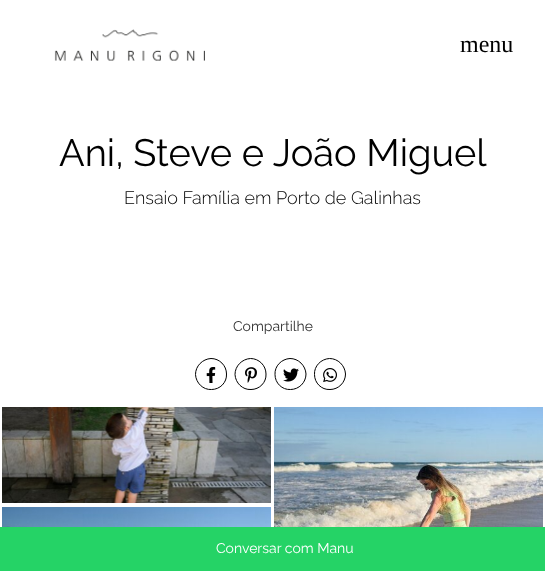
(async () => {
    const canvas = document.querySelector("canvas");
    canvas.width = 545;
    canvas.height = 571;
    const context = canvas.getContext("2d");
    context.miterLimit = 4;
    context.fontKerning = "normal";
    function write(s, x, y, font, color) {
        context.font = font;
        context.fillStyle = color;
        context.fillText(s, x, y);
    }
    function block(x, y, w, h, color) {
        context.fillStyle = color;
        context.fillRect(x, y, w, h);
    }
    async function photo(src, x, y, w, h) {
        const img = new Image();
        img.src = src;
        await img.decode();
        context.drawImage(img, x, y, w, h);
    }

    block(0, 0, 545, 571, "rgb(255, 255, 255)");
    await photo("media/1.png", 54, 29, 151, 32);
    write("menu", 460, 52, "24px Liberation Serif", "rgb(0, 0, 0)");
    write("Ani, Steve e João Miguel", 59, 166, "38px Raleway", "rgb(0, 0, 0)");
    write("Ensaio Família em Porto de Galinhas", 124, 204, "300 18px Raleway", "rgb(0, 0, 0)");
    write("Compartilhe", 233, 331, "14px Raleway", "rgb(51, 51, 51)");
    context.beginPath();
    context.moveTo(211, 358.5);
    context.bezierCurveTo(219.5, 358.5, 226.5, 365.5, 226.5, 374);
    context.bezierCurveTo(227, 382.5, 220, 389.5, 211.5, 389.5);
    context.bezierCurveTo(203, 390, 196, 383, 195.5, 374.5);
    context.bezierCurveTo(195.5, 366, 202.5, 359, 211, 358.5);
    context.closePath();
    context.strokeStyle = "rgb(0, 0, 0)";
    context.stroke();
    await photo("media/2.png", 206, 367, 10, 16);
    context.beginPath();
    context.moveTo(250.5, 358.5);
    context.bezierCurveTo(259, 358.5, 266, 365.5, 266, 374);
    context.bezierCurveTo(266.5, 382.5, 259.5, 389.5, 251, 389.5);
    context.bezierCurveTo(242.5, 390, 235.5, 383, 235, 374.5);
    context.bezierCurveTo(235, 366, 242, 359, 250.5, 358.5);
    context.closePath();
    context.stroke();
    await photo("media/3.png", 245, 367, 12, 16);
    context.beginPath();
    context.moveTo(290, 358.5);
    context.bezierCurveTo(298.5, 358.5, 305.5, 365.5, 306, 374);
    context.bezierCurveTo(306, 382.5, 299, 389.5, 290.5, 389.5);
    context.bezierCurveTo(282, 390, 275, 383, 275, 374.5);
    context.bezierCurveTo(274.5, 366, 281.5, 359, 290, 358.5);
    context.closePath();
    context.stroke();
    await photo("media/4.png", 283, 368, 16, 14);
    context.beginPath();
    context.moveTo(329.5, 358.5);
    context.bezierCurveTo(338, 358.5, 345, 365.5, 345.5, 374);
    context.bezierCurveTo(345.5, 382.5, 338.5, 389.5, 330, 389.5);
    context.bezierCurveTo(321.5, 390, 314.5, 383, 314.5, 374.5);
    context.bezierCurveTo(314, 366, 321, 359, 329.5, 358.5);
    context.closePath();
    context.stroke();
    await photo("media/5.png", 323, 368, 14, 15);
    await photo("media/6.png", 2, 407, 269, 96);
    await photo("media/7.png", 274, 407, 269, 120);
    await photo("media/8.png", 2, 507, 269, 20);
    block(0, 527, 545, 44, "rgb(37, 211, 102)");
    write("Conversar com Manu", 216, 553, "14px Raleway", "rgb(255, 255, 255)");
})();
